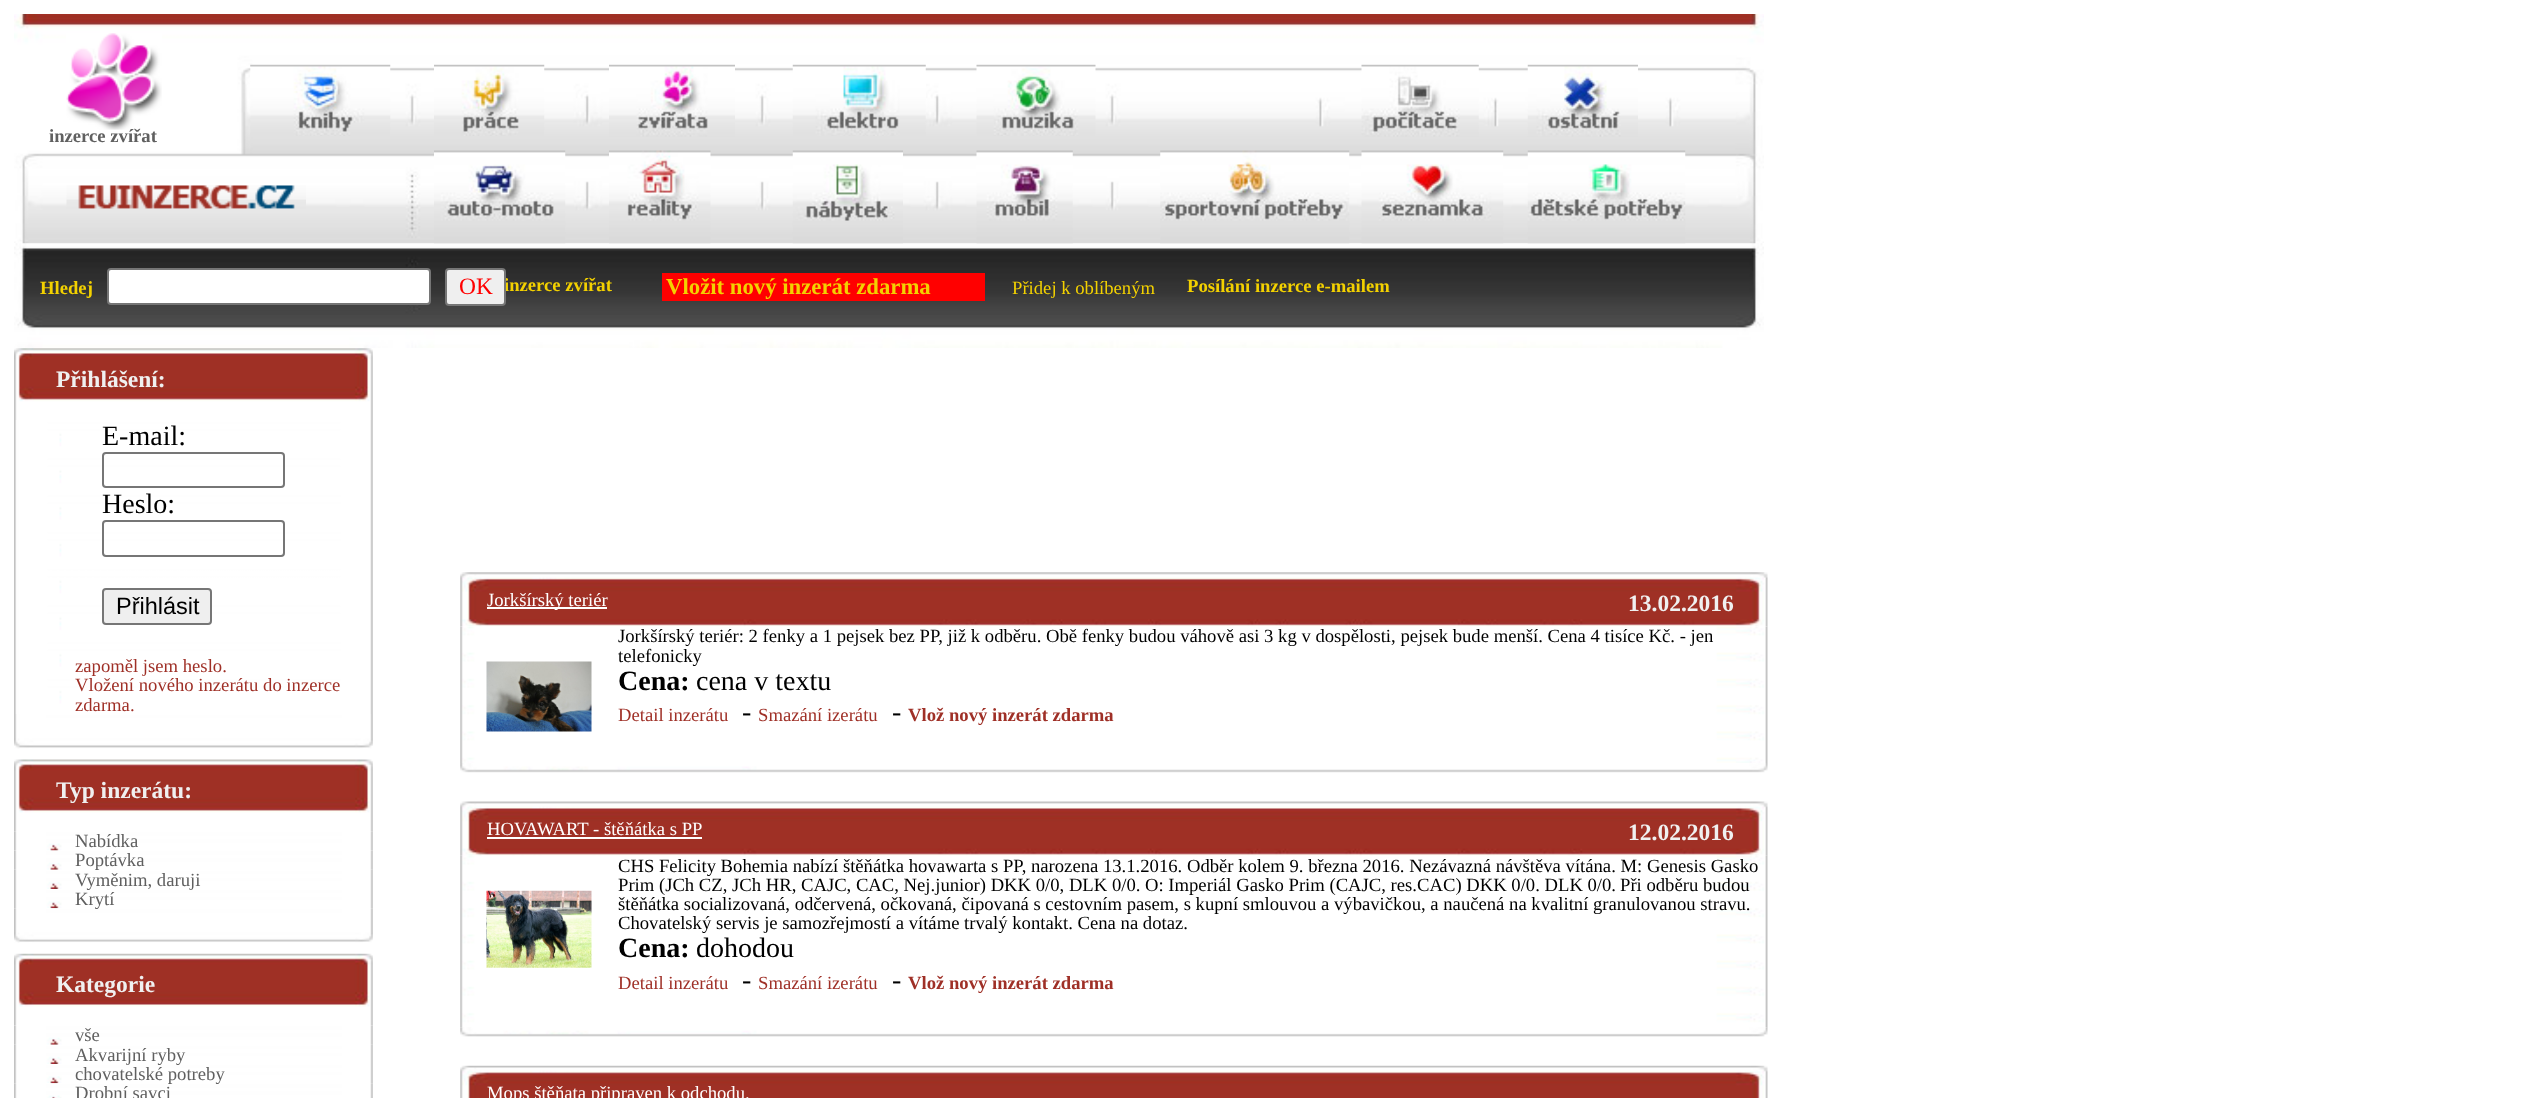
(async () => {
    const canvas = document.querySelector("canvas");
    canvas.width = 2542;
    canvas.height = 1098;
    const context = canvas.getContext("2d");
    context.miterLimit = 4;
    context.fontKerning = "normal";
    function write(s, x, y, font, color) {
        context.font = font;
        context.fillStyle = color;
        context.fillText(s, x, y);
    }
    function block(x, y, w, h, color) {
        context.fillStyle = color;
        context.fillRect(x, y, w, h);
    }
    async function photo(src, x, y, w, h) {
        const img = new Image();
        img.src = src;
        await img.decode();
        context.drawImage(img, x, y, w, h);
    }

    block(0, 0, 2542, 1098, "rgb(255, 255, 255)");
    await photo("media/1.png", 14, 14, 1750, 230);
    await photo("media/2.png", 66, 33, 96, 97);
    await photo("media/3.png", 250, 64, 141, 72);
    await photo("media/4.png", 434, 64, 111, 72);
    await photo("media/5.png", 609, 64, 126, 73);
    await photo("media/6.png", 792, 64, 134, 72);
    await photo("media/7.png", 976, 64, 120, 72);
    await photo("media/8.png", 1361, 64, 118, 73);
    await photo("media/9.png", 1527, 64, 111, 73);
    write("inzerce zvířat", 49, 142, "bold 18.67px Liberation Serif", "rgb(96, 96, 96)");
    await photo("media/10.png", 66, 185, 240, 24);
    await photo("media/18.png", 14, 243, 1750, 105);
    await photo("media/11.png", 434, 150, 132, 94);
    await photo("media/12.png", 609, 150, 102, 94);
    await photo("media/13.png", 792, 150, 111, 94);
    await photo("media/14.png", 976, 150, 97, 94);
    await photo("media/15.png", 1160, 150, 190, 94);
    await photo("media/16.png", 1361, 150, 143, 94);
    await photo("media/17.png", 1527, 150, 159, 94);
    write("Hledej", 40, 294, "bold 18.67px Liberation Serif", "rgb(243, 209, 0)");
    context.fillStyle = "rgb(255, 255, 255)";
    context.beginPath();
    context.roundRect(108, 269, 322, 35, 3);
    context.fill();
    context.strokeStyle = "rgb(118, 118, 118)";
    context.lineWidth = 2;
    context.stroke();
    write("inzerce zvířat", 504, 291, "bold 18.67px Liberation Serif", "rgb(243, 209, 0)");
    context.fillStyle = "rgb(239, 239, 239)";
    context.beginPath();
    context.roundRect(446, 269, 59, 36, 3);
    context.fill();
    context.stroke();
    write("OK", 459, 294, "23.5px Liberation Serif", "rgb(255, 0, 0)");
    block(662, 273, 323, 28, "rgb(255, 0, 0)");
    write("Vložit nový inzerát zdarma", 666, 294, "bold 22.75px Liberation Serif", "rgb(243, 209, 0)");
    write("Přidej k oblíbeným", 1012, 294, "18.67px Liberation Serif", "rgb(243, 209, 0)");
    write("Posílání inzerce e-mailem", 1187, 292, "bold 18.67px Liberation Serif", "rgb(243, 209, 0)");
    await photo("media/19.png", 14, 348, 359, 72);
    write("Přihlášení:", 56, 387, "bold 23.5px Liberation Serif", "rgb(240, 240, 240)");
    await photo("media/20.png", 14, 420, 359, 294);
    write("E-mail:", 102, 445, "28px Liberation Serif", "rgb(0, 0, 0)");
    context.beginPath();
    context.roundRect(103, 453, 181, 34, 3);
    context.stroke();
    write("Heslo:", 102, 513, "28px Liberation Serif", "rgb(0, 0, 0)");
    context.beginPath();
    context.roundRect(103, 521, 181, 35, 3);
    context.stroke();
    context.fillStyle = "rgb(239, 239, 239)";
    context.beginPath();
    context.roundRect(103, 589, 108, 35, 3);
    context.fill();
    context.stroke();
    write("Přihlásit", 116, 614, "23.5px Liberation Sans", "rgb(0, 0, 0)");
    write("zapoměl jsem heslo.", 75, 672, "18.67px Liberation Serif", "rgb(159, 48, 39)");
    write("Vložení nového inzerátu do inzerce", 75, 691, "18.67px Liberation Serif", "rgb(159, 48, 39)");
    write("zdarma.", 75, 711, "18.67px Liberation Serif", "rgb(159, 48, 39)");
    await photo("media/21.png", 14, 714, 359, 35);
    await photo("media/22.png", 14, 759, 359, 73);
    write("Typ inzerátu:", 56, 798, "bold 23.5px Liberation Serif", "rgb(240, 240, 240)");
    await photo("media/23.png", 14, 831, 359, 20);
    write("Nabídka", 75, 847, "18.67px Liberation Serif", "rgb(96, 96, 96)");
    await photo("media/24.png", 14, 850, 359, 20);
    await photo("media/25.png", 14, 869, 359, 20);
    write("Poptávka", 75, 866, "18.67px Liberation Serif", "rgb(96, 96, 96)");
    await photo("media/26.png", 14, 889, 359, 20);
    write("Vyměnim, daruji", 75, 886, "18.67px Liberation Serif", "rgb(96, 96, 96)");
    await photo("media/27.png", 14, 908, 359, 35);
    write("Krytí", 75, 905, "18.67px Liberation Serif", "rgb(96, 96, 96)");
    await photo("media/28.png", 14, 953, 359, 73);
    write("Kategorie", 56, 992, "bold 23.5px Liberation Serif", "rgb(240, 240, 240)");
    await photo("media/29.png", 14, 1025, 359, 20);
    write("vše", 75, 1041, "18.67px Liberation Serif", "rgb(96, 96, 96)");
    await photo("media/25.png", 14, 1044, 359, 20);
    await photo("media/26.png", 14, 1064, 359, 20);
    write("Akvarijní ryby", 75, 1061, "18.67px Liberation Serif", "rgb(96, 96, 96)");
    await photo("media/30.png", 14, 1083, 359, 15);
    write("chovatelské potreby", 75, 1080, "18.67px Liberation Serif", "rgb(96, 96, 96)");
    write("Drobní savci", 75, 1099, "18.67px Liberation Serif", "rgb(96, 96, 96)");
    await photo("media/31.png", 460, 572, 1308, 55);
    block(487, 607, 120, 2, "rgb(255, 255, 255)");
    write("Jorkšírský teriér", 487, 606, "18.67px Liberation Serif", "rgb(255, 255, 255)");
    write("13.02.2016", 1628, 611, "bold 23.5px Liberation Serif", "rgb(240, 240, 240)");
    await photo("media/32.png", 460, 626, 1308, 137);
    write("Jorkšírský teriér: 2 fenky a 1 pejsek bez PP, již k odběru. Obě fenky budou váhově asi 3 kg v dospělosti, pejsek bude menší. Cena 4 tisíce Kč. - jen", 618, 642, "18.67px Liberation Serif", "rgb(0, 0, 0)");
    write("telefonicky", 618, 662, "18.67px Liberation Serif", "rgb(0, 0, 0)");
    await photo("media/33.png", 486, 661, 106, 71);
    write("Cena:", 618, 690, "bold 28px Liberation Serif", "rgb(0, 0, 0)");
    write("cena v textu", 696, 690, "28px Liberation Serif", "rgb(0, 0, 0)");
    write("Detail inzerátu", 618, 721, "18.67px Liberation Serif", "rgb(159, 48, 39)");
    write("-", 742, 721, "28px Liberation Serif", "rgb(0, 0, 0)");
    write("Smazání izerátu", 758, 721, "18.67px Liberation Serif", "rgb(159, 48, 39)");
    write("-", 892, 721, "28px Liberation Serif", "rgb(0, 0, 0)");
    write("Vlož nový inzerát zdarma", 908, 721, "bold 18.67px Liberation Serif", "rgb(159, 48, 39)");
    await photo("media/34.png", 460, 763, 1308, 10);
    await photo("media/35.png", 460, 801, 1308, 55);
    write("HOVAWART - štěňátka s PP", 487, 835, "18.67px Liberation Serif", "rgb(255, 255, 255)");
    block(487, 837, 215, 2, "rgb(255, 255, 255)");
    write("12.02.2016", 1628, 840, "bold 23.5px Liberation Serif", "rgb(240, 240, 240)");
    await photo("media/36.png", 460, 855, 1308, 173);
    await photo("media/37.png", 486, 890, 106, 78);
    write("CHS Felicity Bohemia nabízí štěňátka hovawarta s PP, narozena 13.1.2016. Odběr kolem 9. března 2016. Nezávazná návštěva vítána. M: Genesis Gasko", 618, 872, "18.67px Liberation Serif", "rgb(0, 0, 0)");
    write("Prim (JCh CZ, JCh HR, CAJC, CAC, Nej.junior) DKK 0/0, DLK 0/0.", 618, 891, "18.67px Liberation Serif", "rgb(0, 0, 0)");
    write("O: Imperiál Gasko Prim (CAJC, res.CAC) DKK 0/0. DLK 0/0.", 1145, 891, "18.67px Liberation Serif", "rgb(0, 0, 0)");
    write("Při odběru budou", 1620, 891, "18.67px Liberation Serif", "rgb(0, 0, 0)");
    write("štěňátka socializovaná, odčervená, očkovaná, čipovaná s cestovním pasem, s kupní smlouvou a výbavičkou, a naučená na kvalitní granulovanou stravu.", 618, 910, "18.67px Liberation Serif", "rgb(0, 0, 0)");
    write("Chovatelský servis je samozřejmostí a vítáme trvalý kontakt. Cena na dotaz.", 618, 929, "18.67px Liberation Serif", "rgb(0, 0, 0)");
    write("Cena:", 618, 957, "bold 28px Liberation Serif", "rgb(0, 0, 0)");
    write("dohodou", 696, 957, "28px Liberation Serif", "rgb(0, 0, 0)");
    write("Detail inzerátu", 618, 989, "18.67px Liberation Serif", "rgb(159, 48, 39)");
    write("-", 742, 989, "28px Liberation Serif", "rgb(0, 0, 0)");
    write("Smazání izerátu", 758, 989, "18.67px Liberation Serif", "rgb(159, 48, 39)");
    write("-", 892, 989, "28px Liberation Serif", "rgb(0, 0, 0)");
    write("Vlož nový inzerát zdarma", 908, 989, "bold 18.67px Liberation Serif", "rgb(159, 48, 39)");
    await photo("media/38.png", 460, 1027, 1308, 10);
    await photo("media/39.png", 460, 1065, 1308, 33);
    write("Mops štěňata připraven k odchodu.", 487, 1099, "18.67px Liberation Serif", "rgb(255, 255, 255)");
})();
